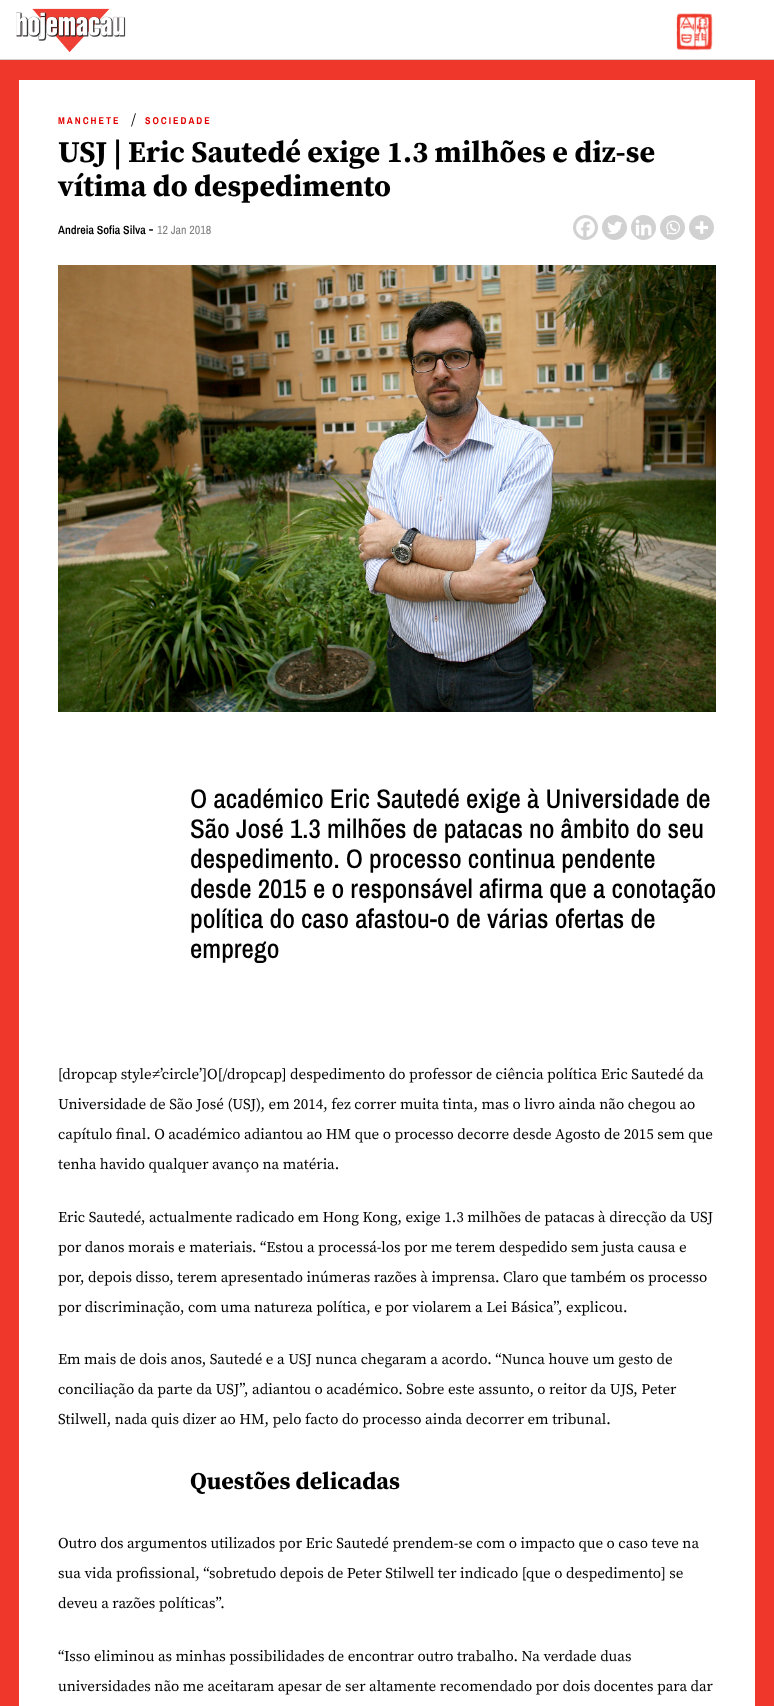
(async () => {
    const canvas = document.querySelector("canvas");
    canvas.width = 774;
    canvas.height = 1706;
    const context = canvas.getContext("2d");
    context.miterLimit = 4;
    context.fontKerning = "normal";
    function write(s, x, y, font, color) {
        context.font = font;
        context.fillStyle = color;
        context.fillText(s, x, y);
    }
    function block(x, y, w, h, color) {
        context.fillStyle = color;
        context.fillRect(x, y, w, h);
    }
    async function photo(src, x, y, w, h) {
        const img = new Image();
        img.src = src;
        await img.decode();
        context.drawImage(img, x, y, w, h);
    }

    block(0, 0, 774, 1706, "rgb(239, 56, 43)");
    block(0, 0, 774, 59, "rgb(255, 255, 255)");
    block(0, 59, 774, 1, "rgb(209, 209, 209)");
    await photo("media/1.png", 16, 8, 110, 44);
    await photo("media/2.png", 676, 13, 37, 38);
    block(19, 80, 736, 1626, "rgb(255, 255, 255)");
    context.letterSpacing = "2px";
    write("MANCHETE", 58, 124, "bold 10px Archivo Narrow", "rgb(226, 0, 0)");
    context.letterSpacing = "0px";
    write("/", 131, 124, "15px Source Serif Pro", "rgb(0, 0, 0)");
    context.letterSpacing = "2px";
    write("SOCIEDADE", 145, 124, "bold 10px Archivo Narrow", "rgb(226, 0, 0)");
    context.letterSpacing = "0px";
    write("USJ | Eric Sautedé exige 1.3 milhões e diz-se", 58, 162, "bold 30px Source Serif Pro", "rgb(0, 0, 0)");
    write("vítima do despedimento", 58, 196, "bold 30px Source Serif Pro", "rgb(0, 0, 0)");
    write("Andreia Sofia Silva", 58, 234, "600 12px Archivo Narrow", "rgb(0, 0, 0)");
    write("-", 149, 234, "15px Archivo Narrow", "rgb(0, 0, 0)");
    write("12 Jan 2018", 157, 234, "12px Archivo Narrow", "rgb(128, 128, 128)");
    context.fillStyle = "rgb(209, 209, 209)";
    context.beginPath();
    context.arc(585.5, 227.5, 12.5, 0, Math.PI * 2);
    context.fill();
    await photo("media/3.png", 576, 218, 19, 19);
    context.beginPath();
    context.arc(614.5, 227.5, 12.5, 0, Math.PI * 2);
    context.fill();
    await photo("media/4.png", 607, 221, 16, 13);
    context.beginPath();
    context.arc(643.5, 227.5, 12.5, 0, Math.PI * 2);
    context.fill();
    await photo("media/5.png", 635, 219, 17, 17);
    context.beginPath();
    context.arc(672.5, 227.5, 12.5, 0, Math.PI * 2);
    context.fill();
    await photo("media/6.png", 666, 220, 14, 15);
    context.beginPath();
    context.arc(701.5, 227.5, 12.5, 0, Math.PI * 2);
    context.fill();
    await photo("media/7.png", 695, 221, 13, 13);
    await photo("media/8.png", 58, 265, 658, 447);
    write("O académico Eric Sautedé exige à Universidade de", 190, 808, "500 27px Archivo Narrow", "rgb(0, 0, 0)");
    write("São José 1.3 milhões de patacas no âmbito do seu", 190, 838, "500 27px Archivo Narrow", "rgb(0, 0, 0)");
    write("despedimento. O processo continua pendente", 190, 868, "500 27px Archivo Narrow", "rgb(0, 0, 0)");
    write("desde 2015 e o responsável afirma que a conotação", 190, 898, "500 27px Archivo Narrow", "rgb(0, 0, 0)");
    write("política do caso afastou-o de várias ofertas de", 190, 928, "500 27px Archivo Narrow", "rgb(0, 0, 0)");
    write("emprego", 190, 958, "500 27px Archivo Narrow", "rgb(0, 0, 0)");
    write("[dropcap style", 58, 1079, "15px Source Serif Pro", "rgb(0, 0, 0)");
    write("≠", 152, 1079, "15px Liberation Serif", "rgb(0, 0, 0)");
    write("’circle’]O[/dropcap] despedimento do professor de ciência política Eric Sautedé da", 160, 1079, "15px Source Serif Pro", "rgb(0, 0, 0)");
    write("Universidade de São José (USJ), em 2014, fez correr muita tinta, mas o livro ainda não chegou ao", 58, 1109, "15px Source Serif Pro", "rgb(0, 0, 0)");
    write("capítulo final. O académico adiantou ao HM que o processo decorre desde Agosto de 2015 sem que", 58, 1139, "15px Source Serif Pro", "rgb(0, 0, 0)");
    write("tenha havido qualquer avanço na matéria.", 58, 1169, "15px Source Serif Pro", "rgb(0, 0, 0)");
    write("Eric Sautedé, actualmente radicado em Hong Kong, exige 1.3 milhões de patacas à direcção da USJ", 58, 1222, "15px Source Serif Pro", "rgb(0, 0, 0)");
    write("por danos morais e materiais. “Estou a processá-los por me terem despedido sem justa causa e", 58, 1252, "15px Source Serif Pro", "rgb(0, 0, 0)");
    write("por, depois disso, terem apresentado inúmeras razões à imprensa. Claro que também os processo", 58, 1282, "15px Source Serif Pro", "rgb(0, 0, 0)");
    write("por discriminação, com uma natureza política, e por violarem a Lei Básica”, explicou.", 58, 1312, "15px Source Serif Pro", "rgb(0, 0, 0)");
    write("Em mais de dois anos, Sautedé e a USJ nunca chegaram a acordo. “Nunca houve um gesto de", 58, 1364, "15px Source Serif Pro", "rgb(0, 0, 0)");
    write("conciliação da parte da USJ”, adiantou o académico. Sobre este assunto, o reitor da UJS, Peter", 58, 1394, "15px Source Serif Pro", "rgb(0, 0, 0)");
    write("Stilwell, nada quis dizer ao HM, pelo facto do processo ainda decorrer em tribunal.", 58, 1424, "15px Source Serif Pro", "rgb(0, 0, 0)");
    write("Questões delicadas", 190, 1489, "bold 24px Source Serif Pro", "rgb(0, 0, 0)");
    write("Outro dos argumentos utilizados por Eric Sautedé prendem-se com o impacto que o caso teve na", 58, 1548, "15px Source Serif Pro", "rgb(0, 0, 0)");
    write("sua vida profissional, “sobretudo depois de Peter Stilwell ter indicado [que o despedimento] se", 58, 1578, "15px Source Serif Pro", "rgb(0, 0, 0)");
    write("deveu a razões políticas”.", 58, 1608, "15px Source Serif Pro", "rgb(0, 0, 0)");
    write("“Isso eliminou as minhas possibilidades de encontrar outro trabalho. Na verdade duas", 58, 1661, "15px Source Serif Pro", "rgb(0, 0, 0)");
    write("universidades não me aceitaram apesar de ser altamente recomendado por dois docentes para dar", 58, 1691, "15px Source Serif Pro", "rgb(0, 0, 0)");
})();
